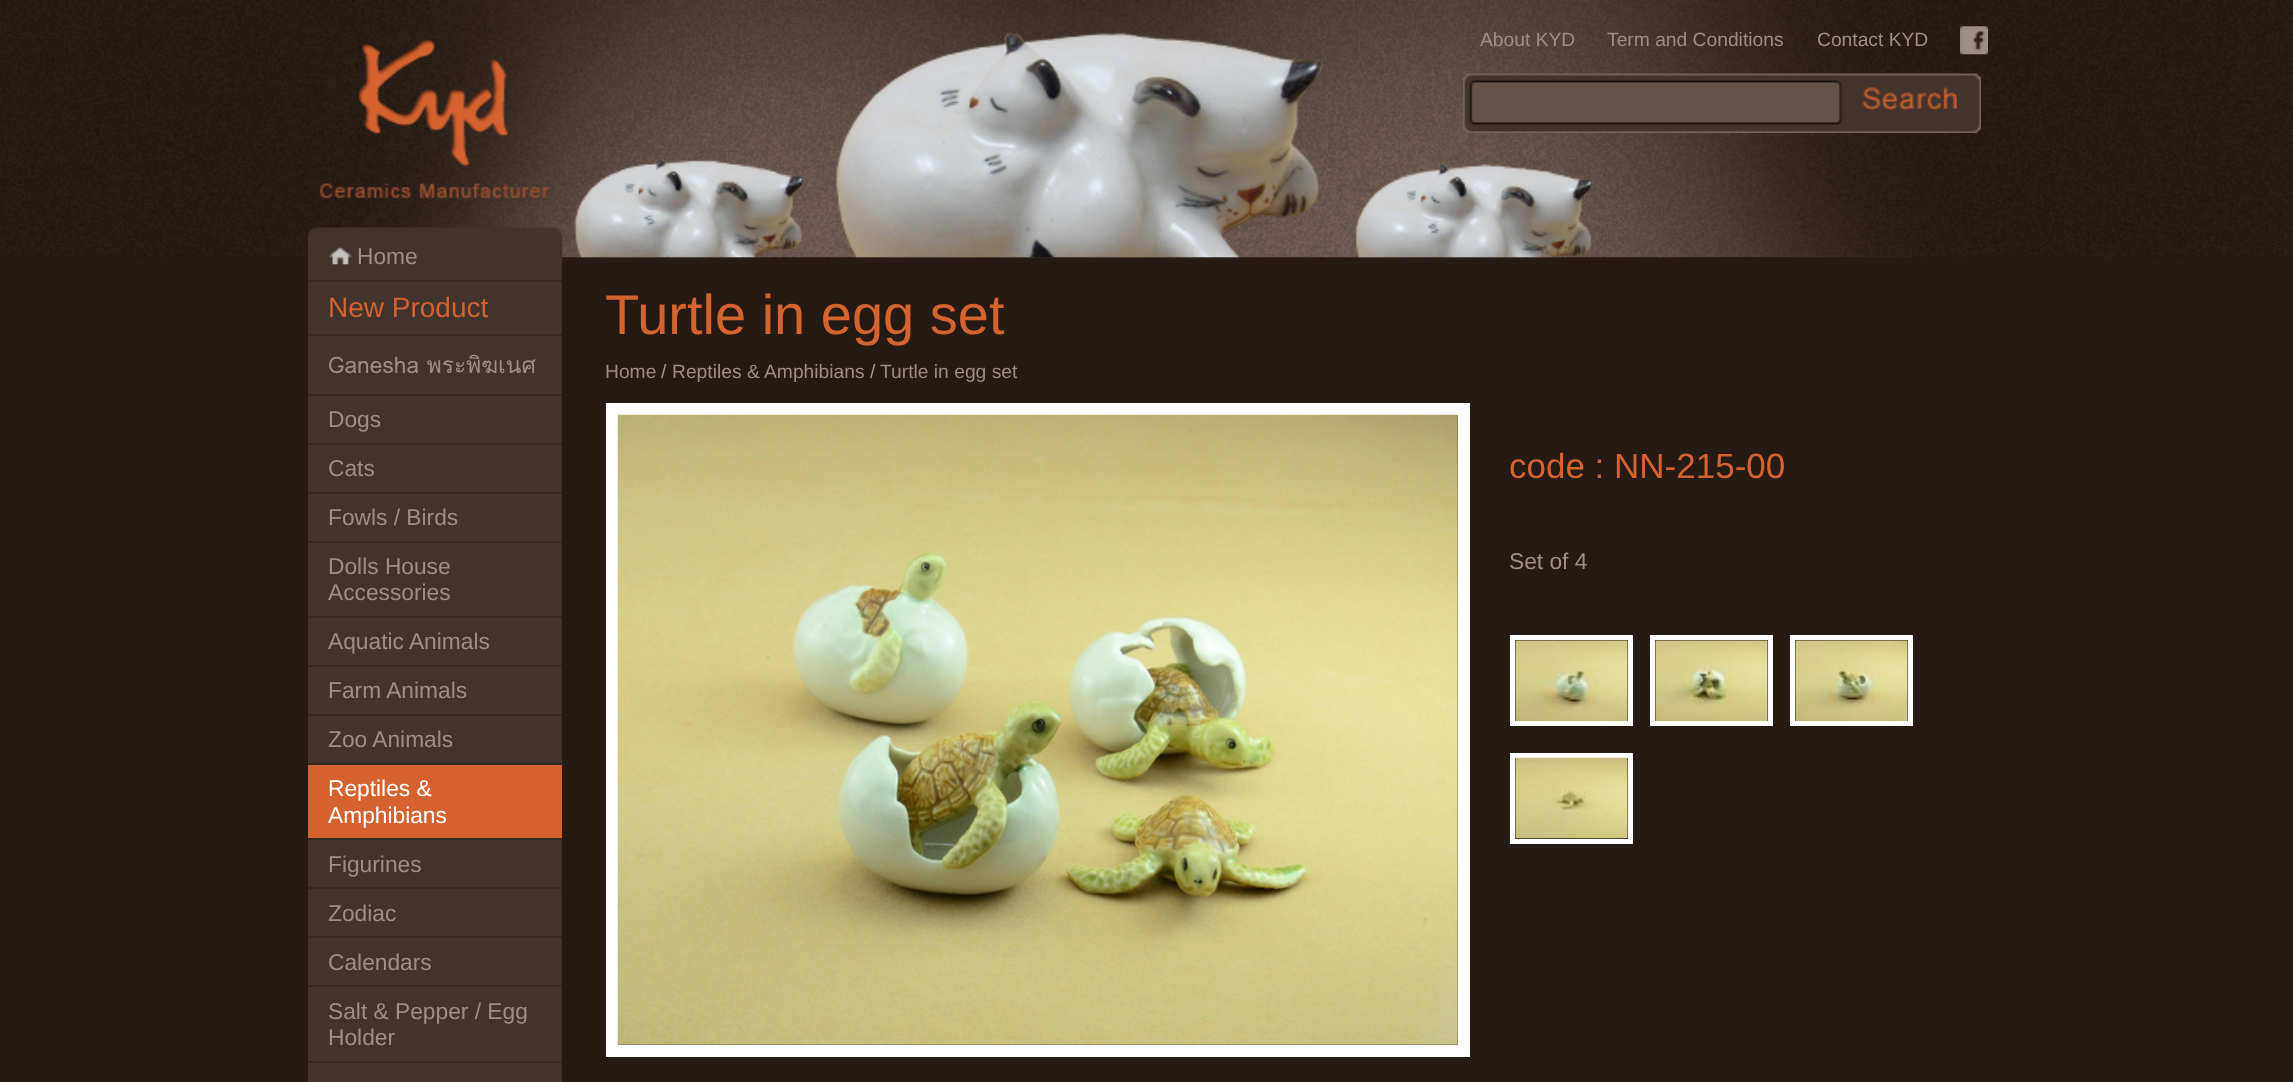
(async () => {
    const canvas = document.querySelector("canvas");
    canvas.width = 2293;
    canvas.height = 1082;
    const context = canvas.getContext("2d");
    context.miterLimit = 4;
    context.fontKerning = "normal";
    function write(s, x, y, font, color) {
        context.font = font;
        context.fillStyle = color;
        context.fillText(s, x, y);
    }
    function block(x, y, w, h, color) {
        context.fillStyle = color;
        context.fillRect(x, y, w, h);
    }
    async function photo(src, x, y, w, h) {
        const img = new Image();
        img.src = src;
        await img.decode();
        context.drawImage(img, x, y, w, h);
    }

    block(0, 0, 2293, 1082, "rgb(37, 26, 20)");
    await photo("media/1.png", 0, 0, 2293, 257);
    await photo("media/2.png", 28, 0, 2240, 258);
    await photo("media/3.png", 574, 31, 1021, 227);
    write("About KYD", 1480, 46, "19.25px Liberation Sans", "rgb(157, 142, 134)");
    write("Term and Conditions", 1607, 46, "19.25px Liberation Sans", "rgb(157, 142, 134)");
    write("Contact KYD", 1817, 46, "19.25px Liberation Sans", "rgb(157, 142, 134)");
    await photo("media/4.png", 1960, 26, 28, 29);
    await photo("media/5.png", 1463, 73, 518, 60);
    await photo("media/6.png", 1862, 87, 95, 24);
    await photo("media/7.png", 319, 39, 231, 160);
    await photo("media/8.png", 308, 227, 254, 9);
    block(308, 236, 254, 44, "rgb(66, 52, 45)");
    await photo("media/9.png", 329, 246, 23, 19);
    write("Home", 357, 264, "22.75px Liberation Sans", "rgb(157, 142, 134)");
    block(308, 282, 254, 52, "rgb(66, 52, 45)");
    block(308, 280, 254, 2, "rgb(53, 41, 34)");
    write("New Product", 328, 317, "28px Liberation Sans", "rgb(213, 99, 48)");
    block(308, 336, 254, 58, "rgb(66, 52, 45)");
    block(308, 334, 254, 2, "rgb(53, 41, 34)");
    write("Ganesha พระพิฆเนศ", 328, 373, "22.75px Loma", "rgb(157, 142, 134)");
    block(308, 396, 254, 47, "rgb(66, 52, 45)");
    block(308, 394, 254, 2, "rgb(53, 41, 34)");
    write("Dogs", 328, 427, "22.75px Liberation Sans", "rgb(157, 142, 134)");
    block(308, 445, 254, 47, "rgb(66, 52, 45)");
    block(308, 443, 254, 2, "rgb(53, 41, 34)");
    write("Cats", 328, 476, "22.75px Liberation Sans", "rgb(157, 142, 134)");
    block(308, 494, 254, 47, "rgb(66, 52, 45)");
    block(308, 492, 254, 2, "rgb(53, 41, 34)");
    write("Fowls / Birds", 328, 525, "22.75px Liberation Sans", "rgb(157, 142, 134)");
    block(308, 543, 254, 73, "rgb(66, 52, 45)");
    block(308, 541, 254, 2, "rgb(53, 41, 34)");
    write("Dolls House", 328, 574, "22.75px Liberation Sans", "rgb(157, 142, 134)");
    write("Accessories", 328, 600, "22.75px Liberation Sans", "rgb(157, 142, 134)");
    block(308, 618, 254, 47, "rgb(66, 52, 45)");
    block(308, 616, 254, 2, "rgb(53, 41, 34)");
    write("Aquatic Animals", 328, 649, "22.75px Liberation Sans", "rgb(157, 142, 134)");
    block(308, 667, 254, 47, "rgb(66, 52, 45)");
    block(308, 665, 254, 2, "rgb(53, 41, 34)");
    write("Farm Animals", 328, 698, "22.75px Liberation Sans", "rgb(157, 142, 134)");
    block(308, 716, 254, 47, "rgb(66, 52, 45)");
    block(308, 714, 254, 2, "rgb(53, 41, 34)");
    write("Zoo Animals", 328, 747, "22.75px Liberation Sans", "rgb(157, 142, 134)");
    block(308, 765, 254, 73, "rgb(213, 99, 48)");
    block(308, 763, 254, 2, "rgb(53, 41, 34)");
    write("Reptiles &", 328, 796, "22.75px Liberation Sans", "rgb(255, 255, 255)");
    write("Amphibians", 328, 823, "22.75px Liberation Sans", "rgb(255, 255, 255)");
    block(308, 840, 254, 47, "rgb(66, 52, 45)");
    block(308, 838, 254, 2, "rgb(53, 41, 34)");
    write("Figurines", 328, 872, "22.75px Liberation Sans", "rgb(157, 142, 134)");
    block(308, 889, 254, 47, "rgb(66, 52, 45)");
    block(308, 887, 254, 2, "rgb(53, 41, 34)");
    write("Zodiac", 328, 921, "22.75px Liberation Sans", "rgb(157, 142, 134)");
    block(308, 938, 254, 47, "rgb(66, 52, 45)");
    block(308, 936, 254, 2, "rgb(53, 41, 34)");
    write("Calendars", 328, 970, "22.75px Liberation Sans", "rgb(157, 142, 134)");
    block(308, 987, 254, 74, "rgb(66, 52, 45)");
    block(308, 985, 254, 2, "rgb(53, 41, 34)");
    write("Salt & Pepper / Egg", 328, 1019, "22.75px Liberation Sans", "rgb(157, 142, 134)");
    write("Holder", 328, 1045, "22.75px Liberation Sans", "rgb(157, 142, 134)");
    block(308, 1063, 254, 19, "rgb(66, 52, 45)");
    block(308, 1061, 254, 2, "rgb(53, 41, 34)");
    write("Turtle in egg set", 605, 334, "56px Liberation Sans", "rgb(213, 99, 48)");
    write("Home", 605, 378, "19.25px Liberation Sans", "rgb(157, 142, 134)");
    write("/", 661, 378, "19.25px Liberation Sans", "rgb(170, 151, 142)");
    write("Reptiles & Amphibians", 672, 378, "19.25px Liberation Sans", "rgb(157, 142, 134)");
    write("/", 870, 378, "19.25px Liberation Sans", "rgb(170, 151, 142)");
    write("Turtle in egg set", 880, 378, "19.25px Liberation Sans", "rgb(157, 142, 134)");
    context.strokeStyle = "rgb(255, 255, 255)";
    context.lineWidth = 12;
    context.strokeRect(612, 409, 852, 642);
    await photo("media/10.png", 617, 414, 841, 631);
    write("code : NN-215-00", 1509, 478, "35px Liberation Sans", "rgb(213, 99, 48)");
    write("Set of 4", 1509, 569, "22.75px Liberation Sans", "rgb(157, 142, 134)");
    context.lineWidth = 5;
    context.strokeRect(1512.5, 637.5, 118, 86);
    await photo("media/11.png", 1515, 640, 113, 81);
    context.strokeRect(1652.5, 637.5, 118, 86);
    await photo("media/12.png", 1655, 640, 113, 81);
    context.strokeRect(1792.5, 637.5, 118, 86);
    await photo("media/13.png", 1795, 640, 113, 81);
    context.strokeRect(1512.5, 755.5, 118, 86);
    await photo("media/14.png", 1515, 757, 113, 82);
})();
